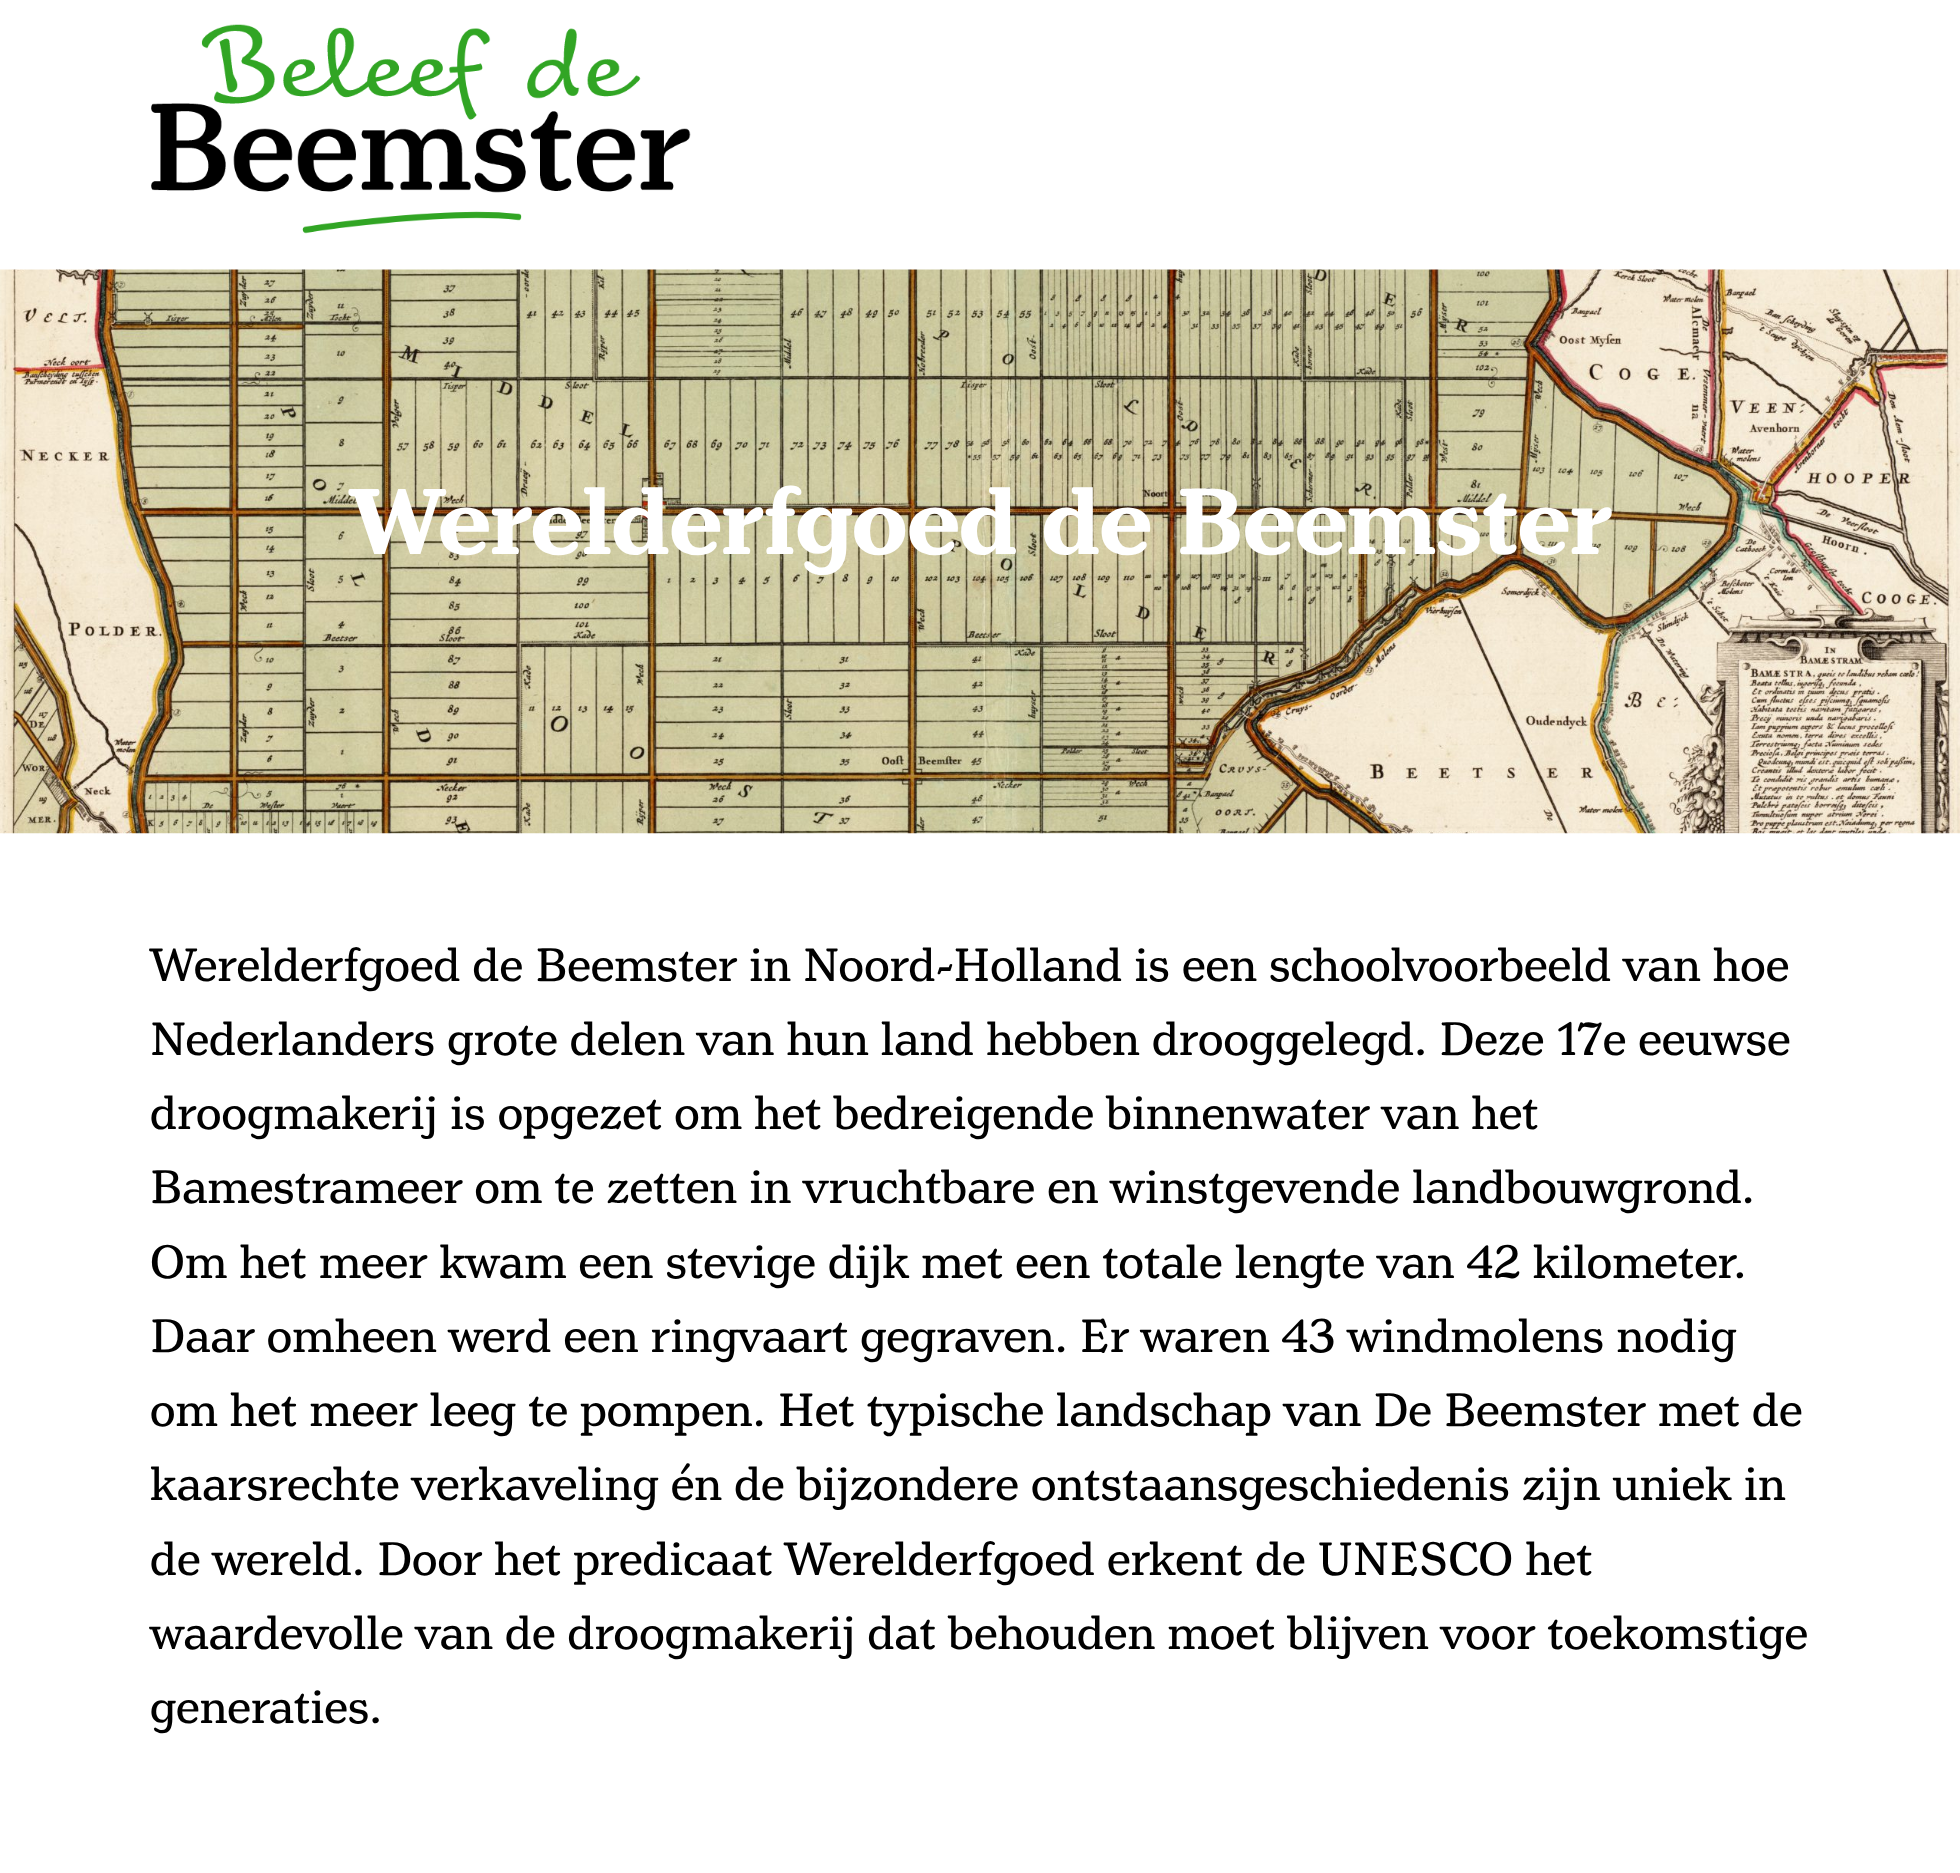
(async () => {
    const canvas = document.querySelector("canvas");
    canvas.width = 1960;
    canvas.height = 1873;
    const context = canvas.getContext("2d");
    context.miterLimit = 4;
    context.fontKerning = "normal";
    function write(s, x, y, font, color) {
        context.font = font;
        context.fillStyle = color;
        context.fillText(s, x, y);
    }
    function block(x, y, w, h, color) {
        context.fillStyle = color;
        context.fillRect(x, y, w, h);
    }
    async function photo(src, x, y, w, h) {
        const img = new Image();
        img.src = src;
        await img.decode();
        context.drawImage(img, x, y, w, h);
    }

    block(0, 0, 1960, 1873, "rgb(255, 255, 255)");
    await photo("media/1.png", 151, 24, 540, 210);
    await photo("media/2.png", 0, 269, 1960, 565);
    write("Werelderfgoed de Beemster", 350, 554, "bold 99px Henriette", "rgb(255, 255, 255)");
    write("Werelderfgoed de Beemster in Noord-Holland is een schoolvoorbeeld van hoe", 150, 981, "49.5px Henriette", "rgb(0, 0, 0)");
    write("Nederlanders grote delen van hun land hebben drooggelegd. Deze 17e eeuwse", 150, 1055, "49.5px Henriette", "rgb(0, 0, 0)");
    write("droogmakerij is opgezet om het bedreigende binnenwater van het", 150, 1129, "49.5px Henriette", "rgb(0, 0, 0)");
    write("Bamestrameer om te zetten in vruchtbare en winstgevende landbouwgrond.", 150, 1203, "49.5px Henriette", "rgb(0, 0, 0)");
    write("Om het meer kwam een stevige dijk met een totale lengte van 42 kilometer.", 150, 1278, "49.5px Henriette", "rgb(0, 0, 0)");
    write("Daar omheen werd een ringvaart gegraven. Er waren 43 windmolens nodig", 150, 1352, "49.5px Henriette", "rgb(0, 0, 0)");
    write("om het meer leeg te pompen. Het typische landschap van De Beemster met de", 150, 1426, "49.5px Henriette", "rgb(0, 0, 0)");
    write("kaarsrechte verkaveling én de bijzondere ontstaansgeschiedenis zijn uniek in", 150, 1500, "49.5px Henriette", "rgb(0, 0, 0)");
    write("de wereld. Door het predicaat Werelderfgoed erkent de UNESCO het", 150, 1575, "49.5px Henriette", "rgb(0, 0, 0)");
    write("waardevolle van de droogmakerij dat behouden moet blijven voor toekomstige", 150, 1649, "49.5px Henriette", "rgb(0, 0, 0)");
    write("generaties.", 150, 1723, "49.5px Henriette", "rgb(0, 0, 0)");
})();
